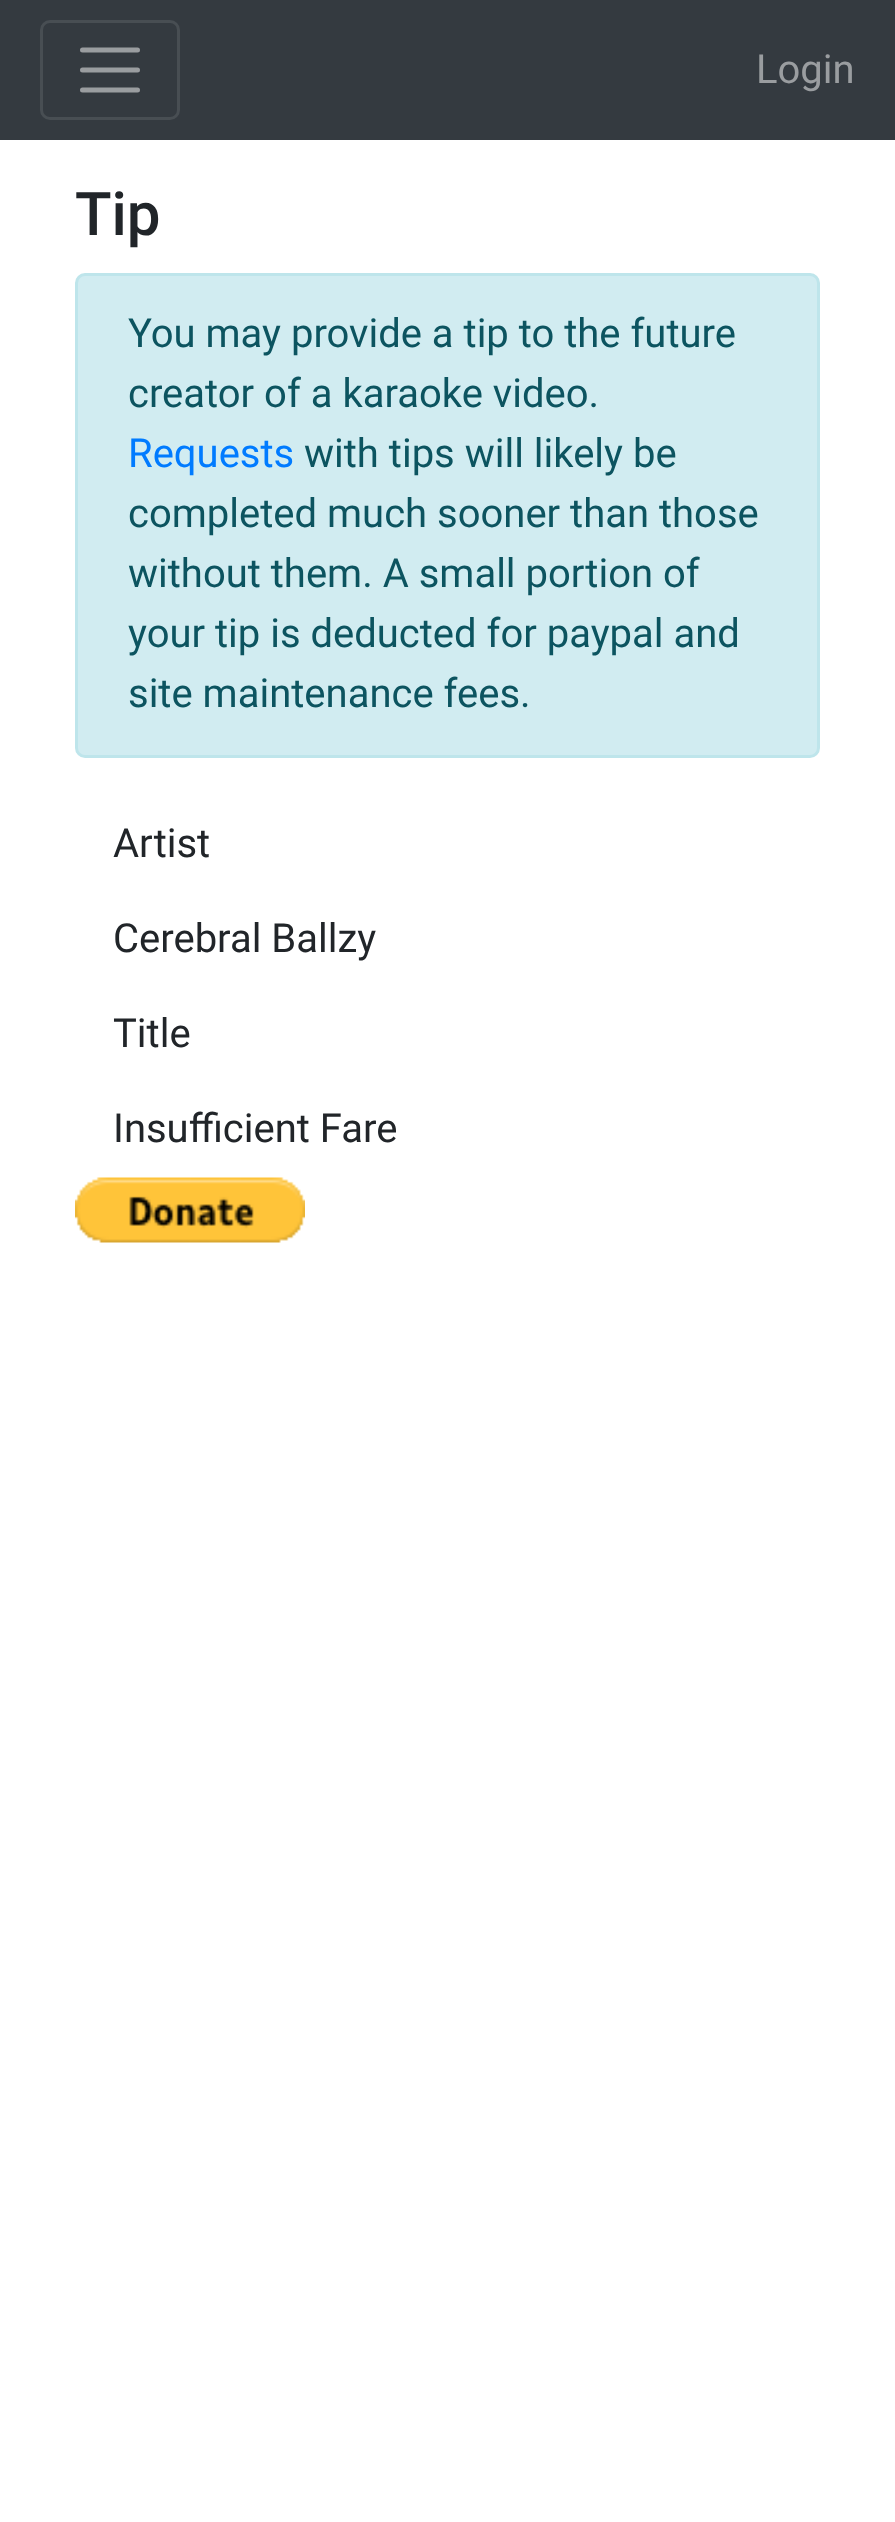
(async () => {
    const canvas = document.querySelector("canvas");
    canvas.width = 895;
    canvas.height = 2522;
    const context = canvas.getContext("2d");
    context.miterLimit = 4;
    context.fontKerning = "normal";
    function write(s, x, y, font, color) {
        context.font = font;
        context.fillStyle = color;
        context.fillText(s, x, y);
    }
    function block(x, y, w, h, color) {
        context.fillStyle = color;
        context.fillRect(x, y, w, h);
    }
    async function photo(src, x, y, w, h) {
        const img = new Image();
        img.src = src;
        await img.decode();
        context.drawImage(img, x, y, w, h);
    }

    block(0, 0, 895, 2522, "rgb(255, 255, 255)");
    block(0, 0, 895, 140, "rgb(52, 58, 64)");
    context.beginPath();
    context.roundRect(41.5, 21.5, 137, 97, 8.5);
    context.strokeStyle = "rgb(72, 78, 83)";
    context.lineWidth = 3;
    context.stroke();
    context.beginPath();
    context.moveTo(82.5, 50);
    context.lineTo(137.5, 50);
    context.moveTo(82.5, 70);
    context.lineTo(137.5, 70);
    context.moveTo(82.5, 90);
    context.lineTo(137.5, 90);
    context.strokeStyle = "rgb(154, 157, 160)";
    context.lineWidth = 5;
    context.lineCap = "round";
    context.stroke();
    write("Login", 756, 83, "40px Roboto", "rgb(154, 157, 160)");
    write("Tip", 75, 235, "500 60px Roboto", "rgb(33, 37, 41)");
    context.fillStyle = "rgb(209, 236, 241)";
    context.beginPath();
    context.roundRect(76.5, 274.5, 742, 482, 8.5);
    context.fill();
    context.strokeStyle = "rgb(190, 229, 235)";
    context.lineWidth = 3;
    context.stroke();
    write("You may provide a tip to the future", 128, 347, "40px Roboto", "rgb(12, 84, 96)");
    write("creator of a karaoke video.", 128, 407, "40px Roboto", "rgb(12, 84, 96)");
    write("Requests", 128, 467, "40px Roboto", "rgb(0, 123, 255)");
    write("with tips will likely be", 304, 467, "40px Roboto", "rgb(12, 84, 96)");
    write("completed much sooner than those", 128, 527, "40px Roboto", "rgb(12, 84, 96)");
    write("without them. A small portion of", 128, 587, "40px Roboto", "rgb(12, 84, 96)");
    write("your tip is deducted for paypal and", 128, 647, "40px Roboto", "rgb(12, 84, 96)");
    write("site maintenance fees.", 128, 707, "40px Roboto", "rgb(12, 84, 96)");
    write("Artist", 113, 857, "40px Roboto", "rgb(33, 37, 41)");
    write("Cerebral Ballzy", 113, 952, "40px Roboto", "rgb(33, 37, 41)");
    write("Title", 113, 1047, "40px Roboto", "rgb(33, 37, 41)");
    write("Insufficient Fare", 113, 1142, "40px Roboto", "rgb(33, 37, 41)");
    await photo("media/1.png", 75, 1177, 230, 66);
})();
